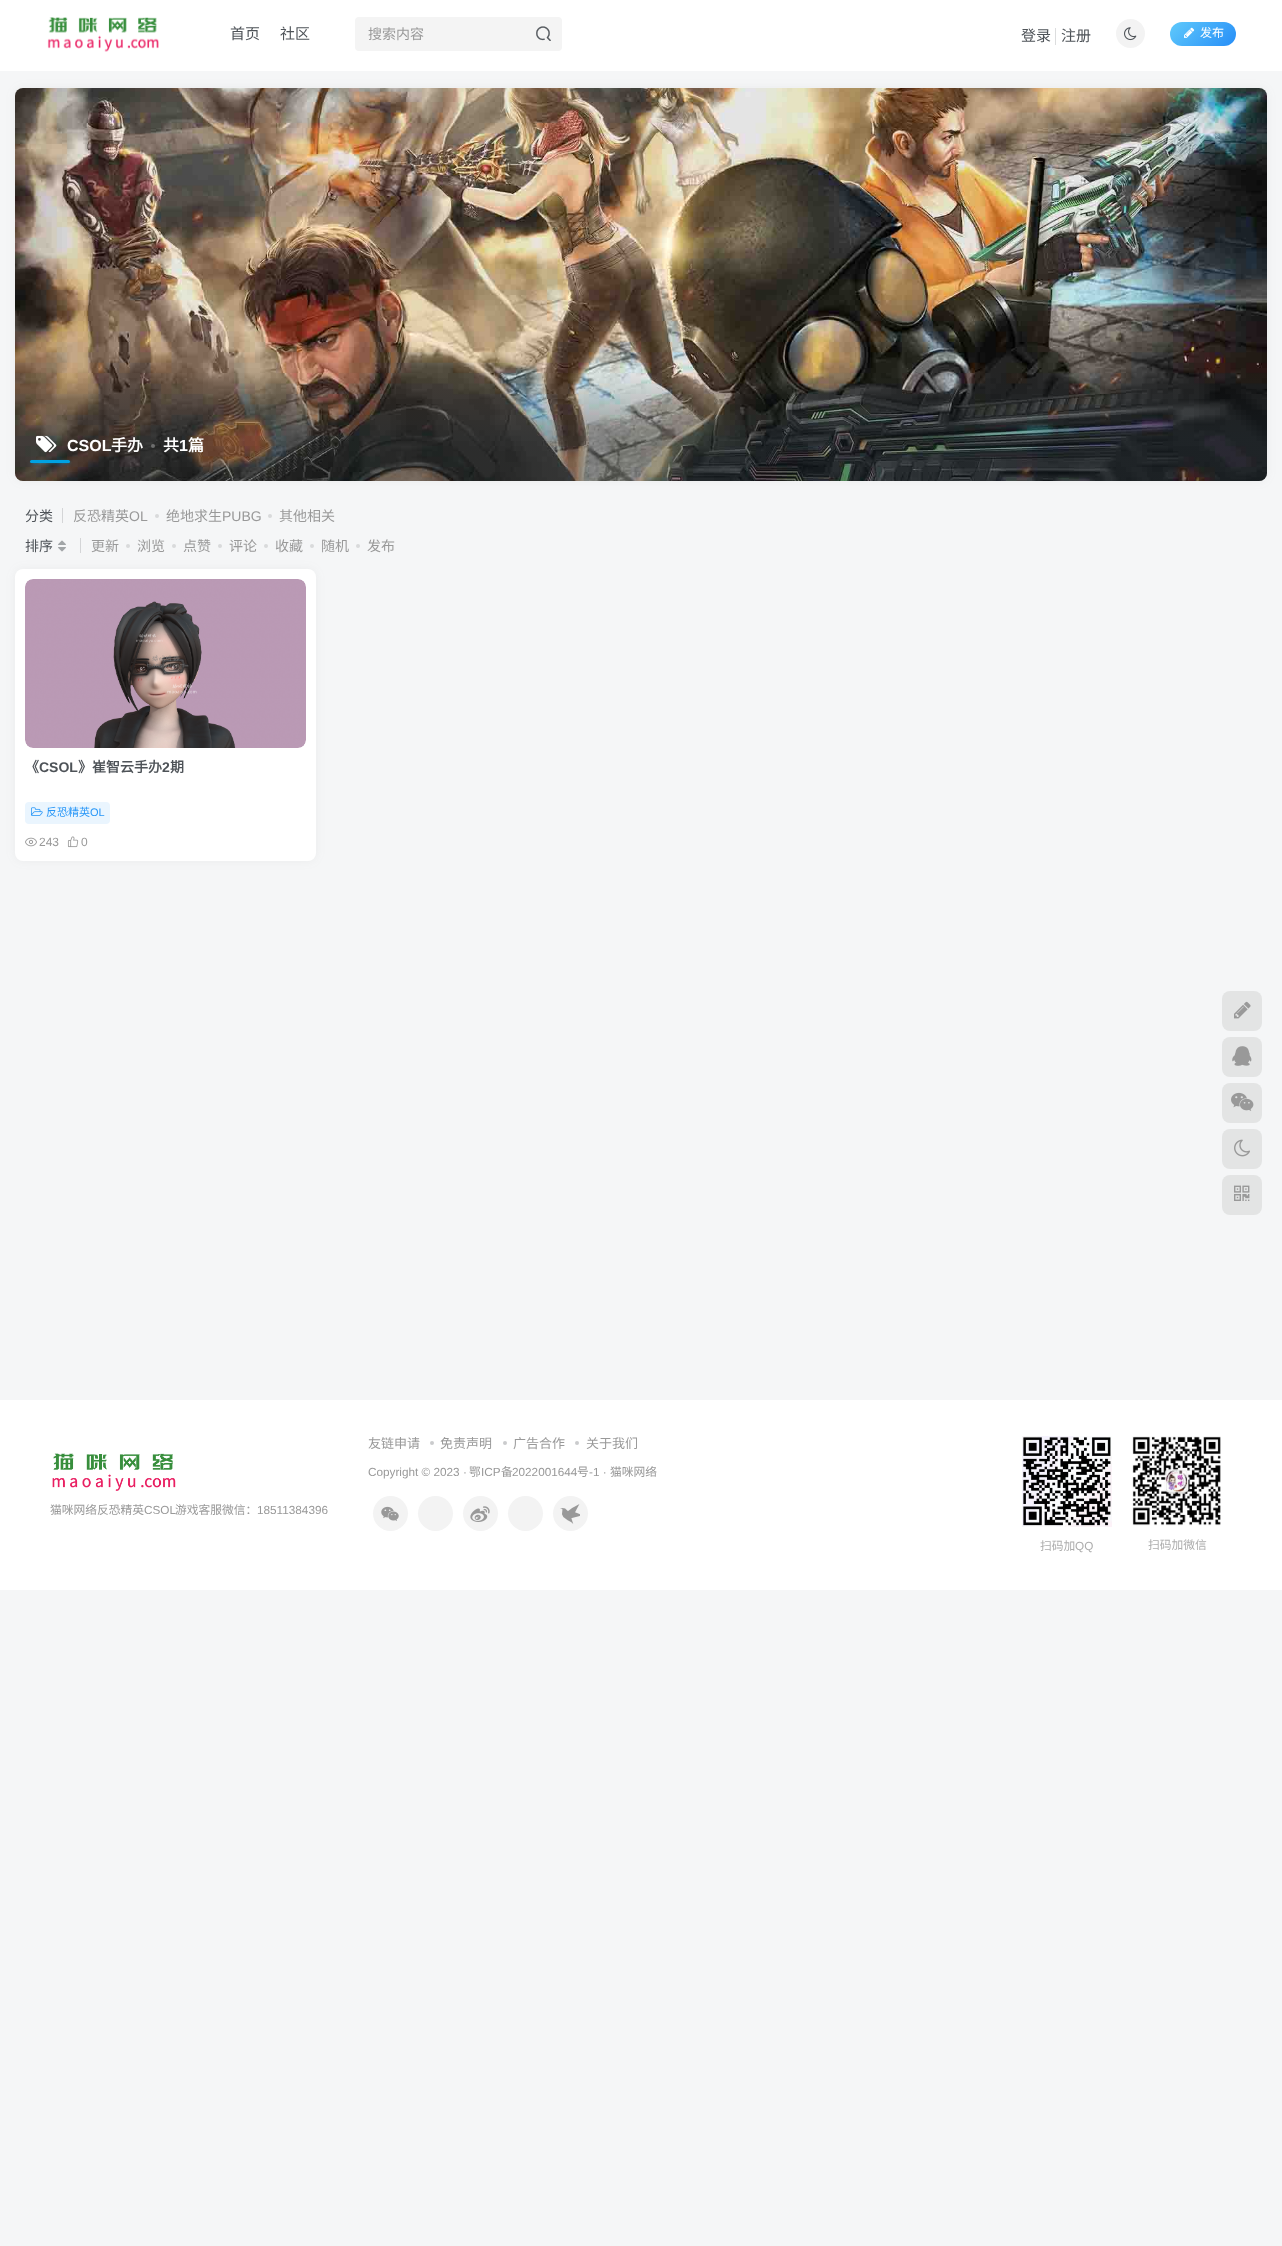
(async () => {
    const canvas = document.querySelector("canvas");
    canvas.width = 1282;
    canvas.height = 2246;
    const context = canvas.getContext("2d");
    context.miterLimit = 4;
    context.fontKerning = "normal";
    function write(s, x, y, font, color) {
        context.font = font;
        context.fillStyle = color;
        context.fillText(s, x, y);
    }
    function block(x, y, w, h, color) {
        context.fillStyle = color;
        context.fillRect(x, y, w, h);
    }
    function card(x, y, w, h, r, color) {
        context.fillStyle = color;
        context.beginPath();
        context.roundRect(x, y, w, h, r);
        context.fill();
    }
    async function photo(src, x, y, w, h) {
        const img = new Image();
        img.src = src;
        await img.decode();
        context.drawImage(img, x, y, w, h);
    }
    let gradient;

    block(0, 0, 1282, 2246, "rgb(245, 246, 247)");
    block(0, 0, 1282, 71, "rgb(255, 255, 255)");
    await photo("media/1.png", 47, 17, 112, 35);
    write("首页", 230, 39, "15px Noto Sans CJK SC", "rgb(78, 83, 88)");
    write("社区", 280, 39, "15px Noto Sans CJK SC", "rgb(78, 83, 88)");
    card(355, 17, 207, 34, 4, "rgb(244, 244, 244)");
    write("搜索内容", 368, 39, "14px Noto Sans CJK SC", "rgb(153, 153, 153)");
    await photo("media/2.png", 536, 26, 15, 15);
    write("登录", 1021, 41, "15px Noto Sans CJK SC", "rgb(78, 83, 88)");
    block(1055, 28, 1, 17, "rgb(220, 221, 222)");
    write("注册", 1061, 41, "15px Noto Sans CJK SC", "rgb(78, 83, 88)");
    context.fillStyle = "rgb(243, 243, 243)";
    context.beginPath();
    context.arc(1130.5, 33.5, 14.5, 0, Math.PI * 2);
    context.fill();
    await photo("media/3.png", 1124, 27, 13, 14);
    gradient = context.createLinearGradient(1181, 12, 1226, 57);
    gradient.addColorStop(0.1, "rgb(89, 195, 251)");
    gradient.addColorStop(1, "rgb(38, 141, 247)");
    context.fillStyle = gradient;
    context.beginPath();
    context.roundRect(1170, 22, 66, 24, 12);
    context.fill();
    await photo("media/4.png", 1184, 27, 11, 11);
    write("发布", 1200, 37, "12px Noto Sans CJK SC", "rgb(255, 255, 255)");
    context.fillStyle = "rgba(116, 116, 116, 0.08)";
    context.filter = "blur(5px)";
    context.beginPath();
    context.roundRect(15, 88, 1252, 393, 8);
    context.fill();
    context.filter = "none";
    card(15, 88, 1252, 393, 8, "rgb(255, 255, 255)");
    await photo("media/5.png", 15, 88, 1252, 393);
    gradient = context.createLinearGradient(641, 481, 641, 88);
    gradient.addColorStop(0.11, "rgba(29, 41, 49, 0.4)");
    gradient.addColorStop(0.28, "rgba(29, 41, 49, 0)");
    context.fillStyle = gradient;
    context.beginPath();
    context.roundRect(15, 88, 1252, 393, 8);
    context.fill();
    await photo("media/6.png", 36, 435, 21, 18);
    write("CSOL", 67, 451, "bold 16px Liberation Sans", "rgb(255, 255, 255)");
    write("手办", 111, 451, "bold 16px Noto Sans CJK SC", "rgb(255, 255, 255)");
    context.fillStyle = "rgba(255, 255, 255, 0.3)";
    context.beginPath();
    context.arc(153, 446, 2, 0, Math.PI * 2);
    context.fill();
    write("共", 163, 451, "bold 16px Noto Sans CJK SC", "rgb(255, 255, 255)");
    write("1", 179, 451, "bold 16px Liberation Sans", "rgb(255, 255, 255)");
    write("篇", 188, 451, "bold 16px Noto Sans CJK SC", "rgb(255, 255, 255)");
    context.fillStyle = "rgb(0, 162, 227)";
    context.filter = "blur(1.5px)";
    context.beginPath();
    context.roundRect(32, 462, 38, 1, 0.5);
    context.fill();
    context.filter = "none";
    card(30, 460, 40, 3, 1.5, "rgb(0, 162, 227)");
    write("分类", 25, 521, "14px Noto Sans CJK SC", "rgb(78, 83, 88)");
    block(62, 508, 1, 15, "rgb(212, 213, 215)");
    write("反恐精英", 73, 521, "14px Noto Sans CJK SC", "rgb(153, 153, 153)");
    write("OL", 129, 521, "14px Liberation Sans", "rgb(153, 153, 153)");
    context.fillStyle = "rgb(217, 218, 219)";
    context.beginPath();
    context.arc(157, 516, 2, 0, Math.PI * 2);
    context.fill();
    write("绝地求生", 166, 521, "14px Noto Sans CJK SC", "rgb(153, 153, 153)");
    write("PUBG", 222, 521, "14px Liberation Sans", "rgb(153, 153, 153)");
    context.fillStyle = "rgb(217, 218, 219)";
    context.beginPath();
    context.arc(270, 516, 2, 0, Math.PI * 2);
    context.fill();
    write("其他相关", 279, 521, "14px Noto Sans CJK SC", "rgb(153, 153, 153)");
    write("排序", 25, 551, "14px Noto Sans CJK SC", "rgb(78, 83, 88)");
    await photo("media/7.png", 58, 540, 8, 12);
    block(80, 538, 1, 15, "rgb(212, 213, 215)");
    write("更新", 91, 551, "14px Noto Sans CJK SC", "rgb(153, 153, 153)");
    context.fillStyle = "rgb(217, 218, 219)";
    context.beginPath();
    context.arc(128, 546, 2, 0, Math.PI * 2);
    context.fill();
    write("浏览", 137, 551, "14px Noto Sans CJK SC", "rgb(153, 153, 153)");
    context.fillStyle = "rgb(217, 218, 219)";
    context.beginPath();
    context.arc(174, 546, 2, 0, Math.PI * 2);
    context.fill();
    write("点赞", 183, 551, "14px Noto Sans CJK SC", "rgb(153, 153, 153)");
    context.fillStyle = "rgb(217, 218, 219)";
    context.beginPath();
    context.arc(220, 546, 2, 0, Math.PI * 2);
    context.fill();
    write("评论", 229, 551, "14px Noto Sans CJK SC", "rgb(153, 153, 153)");
    context.fillStyle = "rgb(217, 218, 219)";
    context.beginPath();
    context.arc(266, 546, 2, 0, Math.PI * 2);
    context.fill();
    write("收藏", 275, 551, "14px Noto Sans CJK SC", "rgb(153, 153, 153)");
    context.fillStyle = "rgb(217, 218, 219)";
    context.beginPath();
    context.arc(312, 546, 2, 0, Math.PI * 2);
    context.fill();
    write("随机", 321, 551, "14px Noto Sans CJK SC", "rgb(153, 153, 153)");
    context.fillStyle = "rgb(217, 218, 219)";
    context.beginPath();
    context.arc(358, 546, 2, 0, Math.PI * 2);
    context.fill();
    write("发布", 367, 551, "14px Noto Sans CJK SC", "rgb(153, 153, 153)");
    context.fillStyle = "rgba(116, 116, 116, 0.08)";
    context.filter = "blur(5px)";
    context.beginPath();
    context.roundRect(15, 569, 301, 292, 8);
    context.fill();
    context.filter = "none";
    card(15, 569, 301, 292, 8, "rgb(255, 255, 255)");
    await photo("media/8.png", 25, 579, 281, 169);
    write("《", 25, 772, "bold 14px Noto Sans CJK SC", "rgb(78, 83, 88)");
    write("CSOL", 39, 772, "bold 14px Liberation Sans", "rgb(78, 83, 88)");
    write("》崔智云手办", 78, 772, "bold 14px Noto Sans CJK SC", "rgb(78, 83, 88)");
    write("2", 162, 772, "bold 14px Liberation Sans", "rgb(78, 83, 88)");
    write("期", 170, 772, "bold 14px Noto Sans CJK SC", "rgb(78, 83, 88)");
    card(25, 802, 85, 22, 4, "rgb(234, 245, 254)");
    await photo("media/9.png", 31, 807, 12, 9);
    write("反恐精英", 46, 816, "11px Noto Sans CJK SC", "rgb(41, 151, 247)");
    write("OL", 90, 816, "11px Liberation Sans", "rgb(41, 151, 247)");
    await photo("media/10.png", 25, 837, 12, 10);
    write("243", 39, 846, "12px Liberation Sans", "rgb(153, 153, 153)");
    await photo("media/11.png", 67, 836, 12, 12);
    write("0", 81, 846, "12px Liberation Sans", "rgb(153, 153, 153)");
    card(1222, 991, 40, 40, 8, "rgb(227, 228, 228)");
    await photo("media/12.png", 1234, 1001, 17, 18);
    card(1222, 1037, 40, 40, 8, "rgb(227, 228, 228)");
    await photo("media/13.png", 1232, 1046, 20, 20);
    card(1222, 1083, 40, 40, 8, "rgb(227, 228, 228)");
    await photo("media/14.png", 1231, 1092, 23, 19);
    card(1222, 1129, 40, 40, 8, "rgb(227, 228, 228)");
    await photo("media/15.png", 1234, 1139, 16, 18);
    card(1222, 1175, 40, 40, 8, "rgb(227, 228, 228)");
    await photo("media/16.png", 1234, 1185, 16, 16);
    block(0, 1400, 1282, 190, "rgb(255, 255, 255)");
    write("友链申请", 368, 1448, "13px Noto Sans CJK SC", "rgb(153, 153, 153)");
    context.fillStyle = "rgb(202, 203, 205)";
    context.beginPath();
    context.arc(432, 1443, 2, 0, Math.PI * 2);
    context.fill();
    write("免责声明", 440, 1448, "13px Noto Sans CJK SC", "rgb(153, 153, 153)");
    context.fillStyle = "rgb(202, 203, 205)";
    context.beginPath();
    context.arc(505, 1443, 2, 0, Math.PI * 2);
    context.fill();
    write("广告合作", 513, 1448, "13px Noto Sans CJK SC", "rgb(153, 153, 153)");
    context.fillStyle = "rgb(202, 203, 205)";
    context.beginPath();
    context.arc(577, 1443, 2, 0, Math.PI * 2);
    context.fill();
    write("关于我们", 586, 1448, "13px Noto Sans CJK SC", "rgb(153, 153, 153)");
    write("Copyright © 2023 ·", 368, 1476, "11.75px Liberation Sans", "rgb(153, 153, 153)");
    write("鄂", 469, 1476, "11.75px Noto Sans CJK SC", "rgb(153, 153, 153)");
    write("ICP", 481, 1476, "11.75px Liberation Sans", "rgb(153, 153, 153)");
    write("备", 501, 1476, "11.75px Noto Sans CJK SC", "rgb(153, 153, 153)");
    write("2022001644", 512, 1476, "11.75px Liberation Sans", "rgb(153, 153, 153)");
    write("号", 577, 1476, "11.75px Noto Sans CJK SC", "rgb(153, 153, 153)");
    write("-1 ·", 589, 1476, "11.75px Liberation Sans", "rgb(153, 153, 153)");
    write("猫咪网络", 610, 1476, "11.75px Noto Sans CJK SC", "rgb(153, 153, 153)");
    context.fillStyle = "rgb(243, 243, 243)";
    context.beginPath();
    context.arc(390.5, 1513.5, 17.5, 0, Math.PI * 2);
    context.fill();
    await photo("media/17.png", 381, 1506, 18, 15);
    context.beginPath();
    context.arc(435.5, 1513.5, 17.5, 0, Math.PI * 2);
    context.fill();
    context.beginPath();
    context.arc(480.5, 1513.5, 17.5, 0, Math.PI * 2);
    context.fill();
    await photo("media/18.png", 470, 1506, 20, 16);
    context.beginPath();
    context.arc(525.5, 1513.5, 17.5, 0, Math.PI * 2);
    context.fill();
    context.beginPath();
    context.arc(570.5, 1513.5, 17.5, 0, Math.PI * 2);
    context.fill();
    await photo("media/19.png", 560, 1504, 20, 20);
    await photo("media/20.png", 52, 1453, 124, 38);
    write("猫咪网络反恐精英", 50, 1514, "11.75px Noto Sans CJK SC", "rgb(153, 153, 153)");
    write("CSOL", 144, 1514, "11.75px Liberation Sans", "rgb(153, 153, 153)");
    write("游戏客服微信：", 175, 1514, "11.75px Noto Sans CJK SC", "rgb(153, 153, 153)");
    write("18511384396", 257, 1514, "11.75px Liberation Sans", "rgb(153, 153, 153)");
    await photo("media/21.png", 1022, 1436, 90, 91);
    write("扫码加", 1040, 1550, "11.75px Noto Sans CJK SC", "rgb(173, 173, 173)");
    write("QQ", 1075, 1550, "11.75px Liberation Sans", "rgb(173, 173, 173)");
    await photo("media/22.png", 1132, 1436, 89, 90);
    write("扫码加微信", 1148, 1549, "11.75px Noto Sans CJK SC", "rgb(173, 173, 173)");
})();
